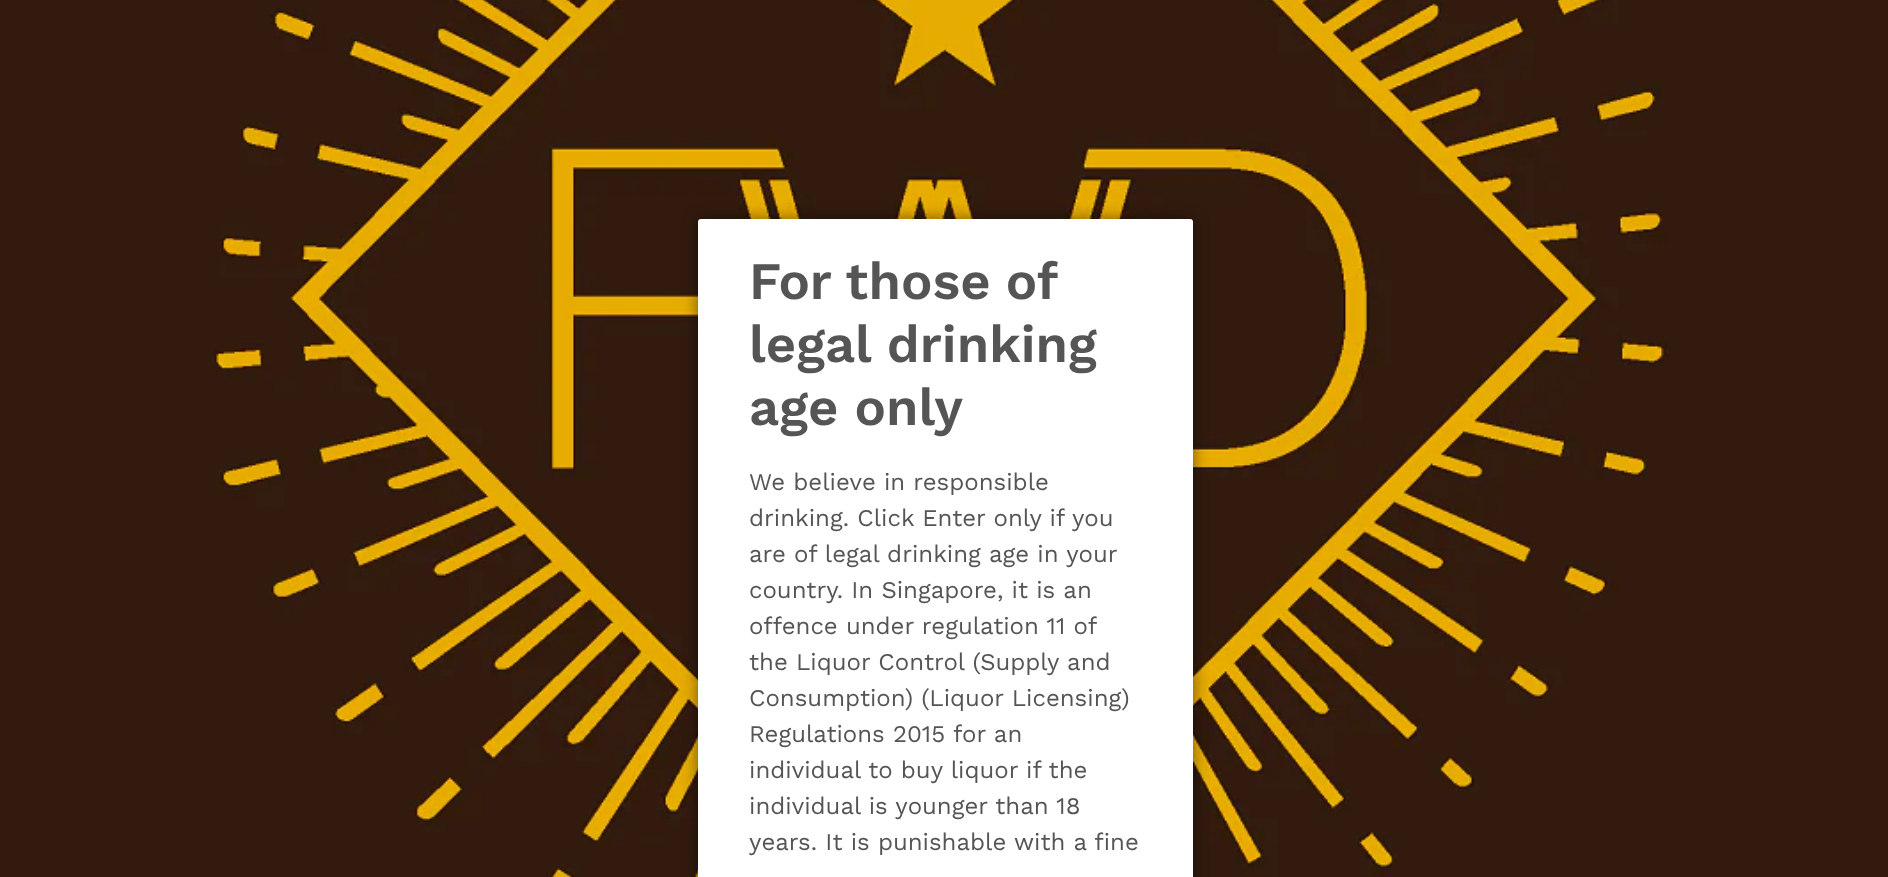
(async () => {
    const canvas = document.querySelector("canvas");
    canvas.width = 1888;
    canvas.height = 877;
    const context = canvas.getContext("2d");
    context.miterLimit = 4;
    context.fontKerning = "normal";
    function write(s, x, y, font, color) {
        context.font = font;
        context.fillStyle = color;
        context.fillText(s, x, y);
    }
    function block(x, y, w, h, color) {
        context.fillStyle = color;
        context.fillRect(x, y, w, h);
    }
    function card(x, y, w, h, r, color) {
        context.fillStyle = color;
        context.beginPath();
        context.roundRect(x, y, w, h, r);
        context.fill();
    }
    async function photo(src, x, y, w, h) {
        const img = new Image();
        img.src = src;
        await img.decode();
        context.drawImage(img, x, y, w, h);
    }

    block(0, 0, 1888, 877, "rgb(255, 255, 255)");
    await photo("media/1.png", 0, 0, 1888, 877);
    context.fillStyle = "rgba(0, 0, 0, 0.5)";
    context.filter = "blur(7.5px)";
    context.beginPath();
    context.roundRect(698, 219, 495, 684, 3);
    context.fill();
    context.filter = "none";
    card(698, 219, 495, 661, 3, "rgb(255, 255, 255)");
    context.wordSpacing = "-1px";
    write("For those of", 749, 299, "600 52.5px Work Sans", "rgb(85, 85, 85)");
    context.wordSpacing = "0px";
    write("legal drinking", 749, 362, "600 52.5px Work Sans", "rgb(85, 85, 85)");
    write("age only", 749, 425, "600 52.5px Work Sans", "rgb(85, 85, 85)");
    write("We believe in responsible", 749, 490, "24px Work Sans", "rgb(85, 85, 85)");
    write("drinking. Click Enter only if you", 749, 526, "24px Work Sans", "rgb(85, 85, 85)");
    write("are of legal drinking age in your", 749, 562, "24px Work Sans", "rgb(85, 85, 85)");
    write("country. In Singapore, it is an", 749, 598, "24px Work Sans", "rgb(85, 85, 85)");
    write("offence under regulation 11 of", 749, 634, "24px Work Sans", "rgb(85, 85, 85)");
    write("the Liquor Control (Supply and", 749, 670, "24px Work Sans", "rgb(85, 85, 85)");
    write("Consumption) (Liquor Licensing)", 749, 706, "24px Work Sans", "rgb(85, 85, 85)");
    write("Regulations 2015 for an", 749, 742, "24px Work Sans", "rgb(85, 85, 85)");
    write("individual to buy liquor if the", 749, 778, "24px Work Sans", "rgb(85, 85, 85)");
    write("individual is younger than 18", 749, 814, "24px Work Sans", "rgb(85, 85, 85)");
    write("years. It is punishable with a fine", 749, 850, "24px Work Sans", "rgb(85, 85, 85)");
})();
